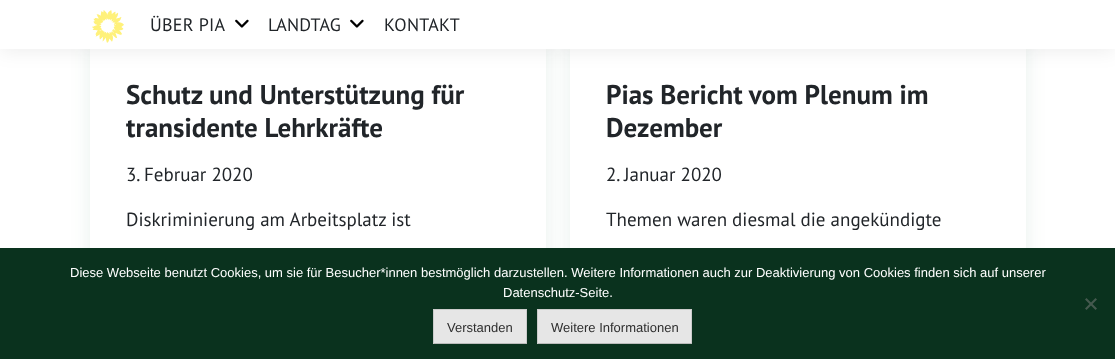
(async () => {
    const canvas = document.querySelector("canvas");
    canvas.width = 1115;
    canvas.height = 359;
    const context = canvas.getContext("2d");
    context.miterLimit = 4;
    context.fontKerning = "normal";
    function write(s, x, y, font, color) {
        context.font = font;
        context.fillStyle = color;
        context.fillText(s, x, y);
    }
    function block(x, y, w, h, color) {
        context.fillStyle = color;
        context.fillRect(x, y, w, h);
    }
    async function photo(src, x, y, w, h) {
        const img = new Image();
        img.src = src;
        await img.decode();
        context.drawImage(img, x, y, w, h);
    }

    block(0, 0, 1115, 359, "rgb(255, 255, 255)");
    context.fillStyle = "rgba(0, 0, 0, 0.08)";
    context.filter = "blur(10px)";
    context.beginPath();
    context.rect(0, 1, 1115, 49);
    context.fill();
    context.filter = "none";
    context.save();
    context.beginPath();
    context.moveTo(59, 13);
    context.lineTo(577, 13);
    context.lineTo(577, 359);
    context.lineTo(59, 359);
    context.closePath();
    context.moveTo(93, 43);
    context.lineTo(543, 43);
    context.bezierCurveTo(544.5, 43, 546, 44.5, 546, 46);
    context.lineTo(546, 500);
    context.bezierCurveTo(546, 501.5, 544.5, 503, 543, 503);
    context.lineTo(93, 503);
    context.bezierCurveTo(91.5, 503, 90, 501.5, 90, 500);
    context.lineTo(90, 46);
    context.bezierCurveTo(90, 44.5, 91.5, 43, 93, 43);
    context.closePath();
    context.clip("evenodd");
    context.fillStyle = "rgba(0, 84, 55, 0.09)";
    context.filter = "blur(10px)";
    context.beginPath();
    context.roundRect(90, 44, 456, 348, 3);
    context.fill();
    context.filter = "none";
    context.restore();
    context.save();
    context.beginPath();
    context.moveTo(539, 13);
    context.lineTo(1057, 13);
    context.lineTo(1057, 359);
    context.lineTo(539, 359);
    context.closePath();
    context.moveTo(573, 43);
    context.lineTo(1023, 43);
    context.bezierCurveTo(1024.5, 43, 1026, 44.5, 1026, 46);
    context.lineTo(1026, 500);
    context.bezierCurveTo(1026, 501.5, 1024.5, 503, 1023, 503);
    context.lineTo(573, 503);
    context.bezierCurveTo(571.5, 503, 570, 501.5, 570, 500);
    context.lineTo(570, 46);
    context.bezierCurveTo(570, 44.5, 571.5, 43, 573, 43);
    context.closePath();
    context.clip("evenodd");
    context.fillStyle = "rgba(0, 84, 55, 0.09)";
    context.filter = "blur(10px)";
    context.beginPath();
    context.roundRect(570, 44, 456, 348, 3);
    context.fill();
    context.filter = "none";
    context.restore();
    block(0, 0, 1115, 49, "rgb(255, 255, 255)");
    await photo("media/1.png", 92, 10, 32, 33);
    context.letterSpacing = "0.25px";
    write("ÜBER PIA", 150, 31, "18px PT Sans", "rgb(33, 37, 41)");
    await photo("media/2.png", 235, 19, 14, 9);
    write("LANDTAG", 268, 31, "18px PT Sans", "rgb(33, 37, 41)");
    await photo("media/2.png", 350, 19, 14, 9);
    write("KONTAKT", 384, 31, "18px PT Sans", "rgb(33, 37, 41)");
    context.letterSpacing = "0px";
    write("Schutz und Unterstützung für", 126, 104, "bold 27px PT Sans", "rgb(33, 37, 41)");
    write("transidente Lehrkräfte", 126, 137, "bold 27px PT Sans", "rgb(33, 37, 41)");
    write("3. Februar 2020", 126, 181, "19px PT Sans", "rgb(33, 37, 41)");
    write("Diskriminierung am Arbeitsplatz ist", 126, 226, "19px PT Sans", "rgb(33, 37, 41)");
    write("Pias Bericht vom Plenum im", 606, 104, "bold 27px PT Sans", "rgb(33, 37, 41)");
    write("Dezember", 606, 137, "bold 27px PT Sans", "rgb(33, 37, 41)");
    write("2. Januar 2020", 606, 181, "19px PT Sans", "rgb(33, 37, 41)");
    write("Themen waren diesmal die angekündigte", 606, 226, "19px PT Sans", "rgb(33, 37, 41)");
    block(0, 248, 1115, 111, "rgb(10, 50, 30)");
    write("Diese Webseite benutzt Cookies, um sie für Besucher*innen bestmöglich darzustellen. Weitere Informationen auch zur Deaktivierung von Cookies finden sich auf unserer", 70, 277, "13px Liberation Sans", "rgb(255, 255, 255)");
    write("Datenschutz-Seite.", 503, 297, "13px Liberation Sans", "rgb(255, 255, 255)");
    context.fillStyle = "rgb(69, 89, 79)";
    context.beginPath();
    context.moveTo(1095.5, 298);
    context.lineTo(1097, 299.5);
    context.lineTo(1086.5, 310);
    context.lineTo(1085, 308.5);
    context.closePath();
    context.fill();
    context.beginPath();
    context.moveTo(1085, 299.5);
    context.lineTo(1086.5, 298);
    context.lineTo(1097, 308.5);
    context.lineTo(1095.5, 310);
    context.closePath();
    context.fill();
    block(434, 310, 92, 33, "rgb(230, 230, 230)");
    block(433, 309, 94, 1, "rgb(204, 204, 204)");
    block(526, 309, 1, 35, "rgb(204, 204, 204)");
    block(433, 343, 94, 1, "rgb(187, 187, 187)");
    block(433, 309, 1, 35, "rgb(204, 204, 204)");
    write("Verstanden", 447, 332, "13px Liberation Sans", "rgb(46, 46, 46)");
    block(538, 310, 153, 33, "rgb(230, 230, 230)");
    block(537, 309, 155, 1, "rgb(204, 204, 204)");
    block(691, 309, 1, 35, "rgb(204, 204, 204)");
    block(537, 343, 155, 1, "rgb(187, 187, 187)");
    block(537, 309, 1, 35, "rgb(204, 204, 204)");
    write("Weitere Informationen", 551, 332, "13px Liberation Sans", "rgb(46, 46, 46)");
})();
